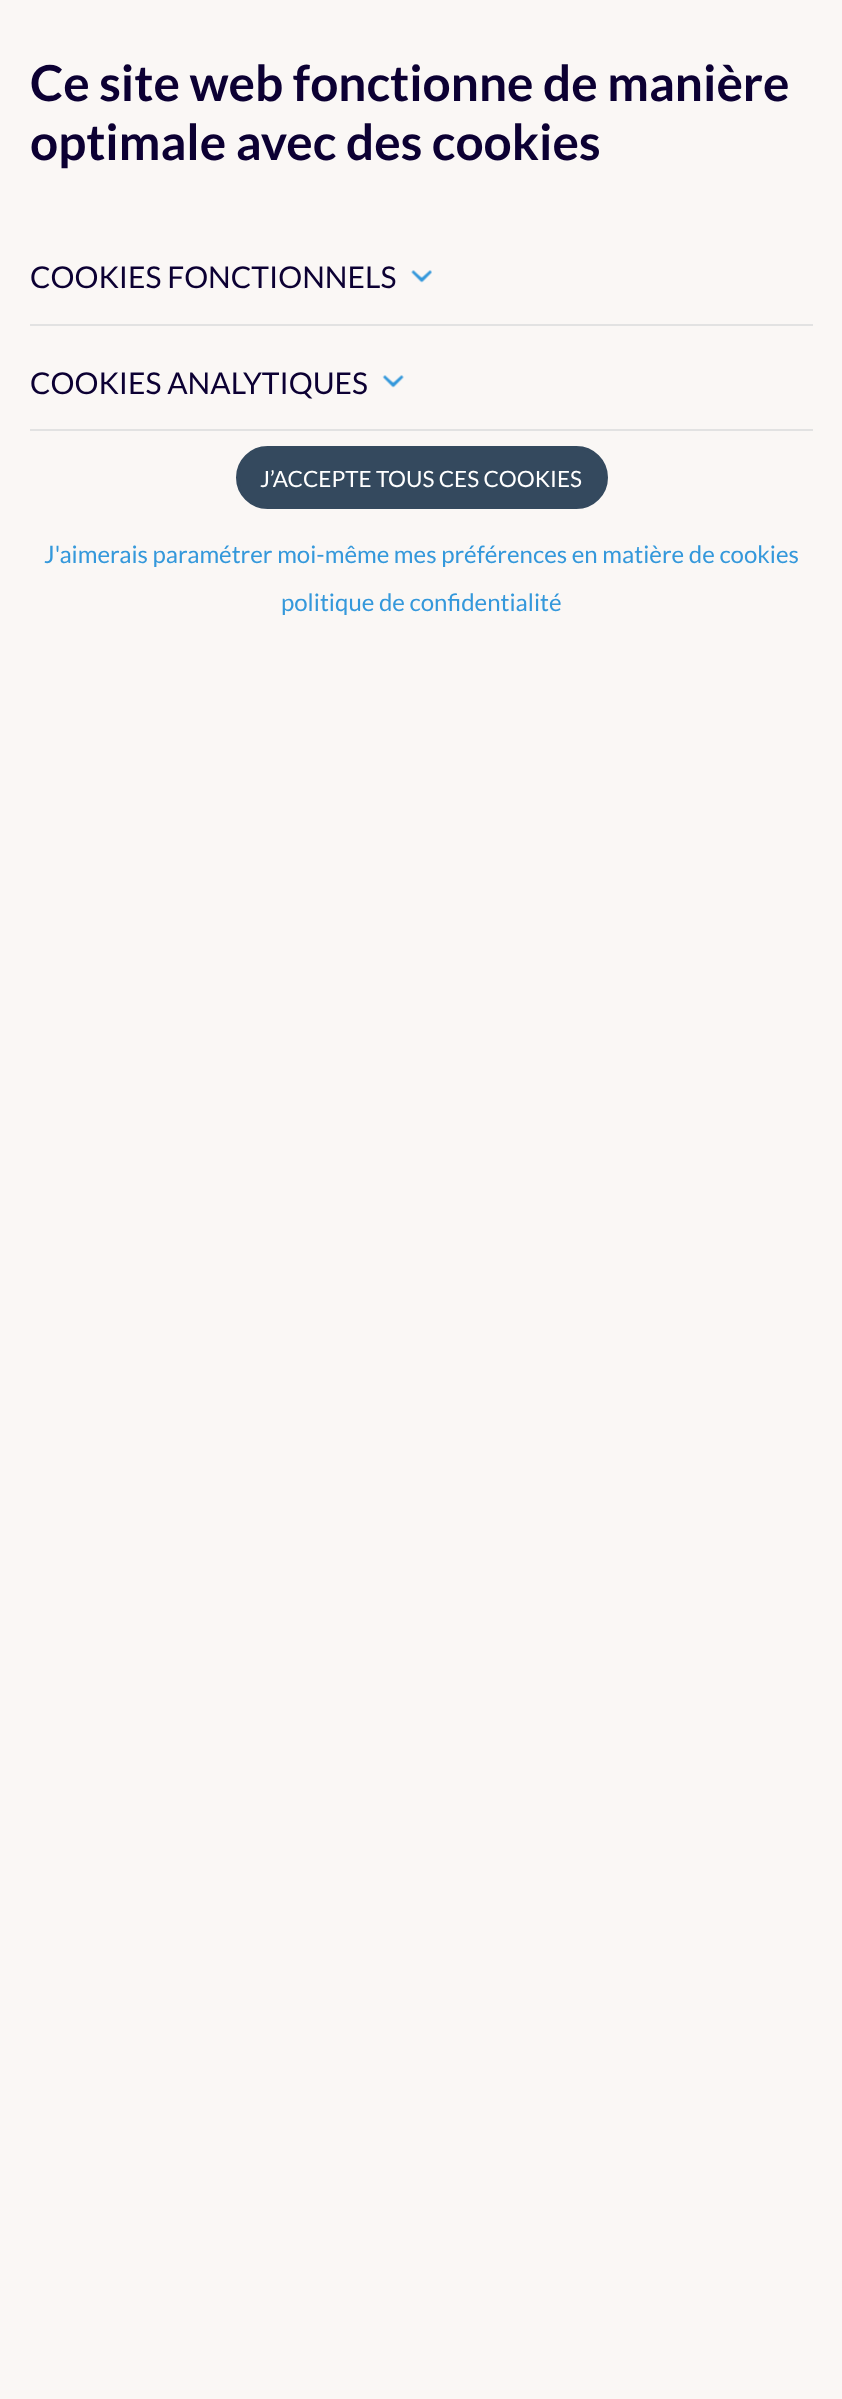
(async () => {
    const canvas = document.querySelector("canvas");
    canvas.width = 842;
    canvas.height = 2399;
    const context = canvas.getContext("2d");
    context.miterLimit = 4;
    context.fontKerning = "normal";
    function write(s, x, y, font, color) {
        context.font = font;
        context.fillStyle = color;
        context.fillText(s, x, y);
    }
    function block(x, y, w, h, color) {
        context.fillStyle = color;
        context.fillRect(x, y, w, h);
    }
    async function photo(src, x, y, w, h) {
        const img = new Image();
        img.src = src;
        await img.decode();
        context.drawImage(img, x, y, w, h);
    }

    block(0, 0, 842, 2399, "rgb(250, 247, 245)");
    write("Ce site web fonctionne de manière", 30, 101, "bold 49.5px Lato", "rgb(12, 0, 51)");
    write("optimale avec des cookies", 30, 160, "bold 49.5px Lato", "rgb(12, 0, 51)");
    write("COOKIES FONCTIONNELS", 30, 288, "30px Lato", "rgb(12, 0, 51)");
    await photo("media/1.png", 411, 270, 21, 13);
    block(30, 324, 783, 2, "rgb(226, 226, 226)");
    write("COOKIES ANALYTIQUES", 30, 394, "30px Lato", "rgb(12, 0, 51)");
    await photo("media/2.png", 382, 375, 22, 13);
    block(30, 429, 783, 2, "rgb(226, 226, 226)");
    context.fillStyle = "rgb(52, 73, 94)";
    context.beginPath();
    context.roundRect(237.5, 447.5, 369, 60, 30);
    context.fill();
    context.strokeStyle = "rgb(52, 73, 94)";
    context.lineWidth = 3;
    context.stroke();
    write("J’ACCEPTE TOUS CES COOKIES", 260, 487, "22.5px Lato", "rgb(255, 255, 255)");
    write("J'aimerais paramétrer moi-même mes préférences en matière de cookies", 44, 563, "24px Lato", "rgb(52, 152, 219)");
    write("politique de confidentialité", 281, 611, "24px Lato", "rgb(52, 152, 219)");
})();
